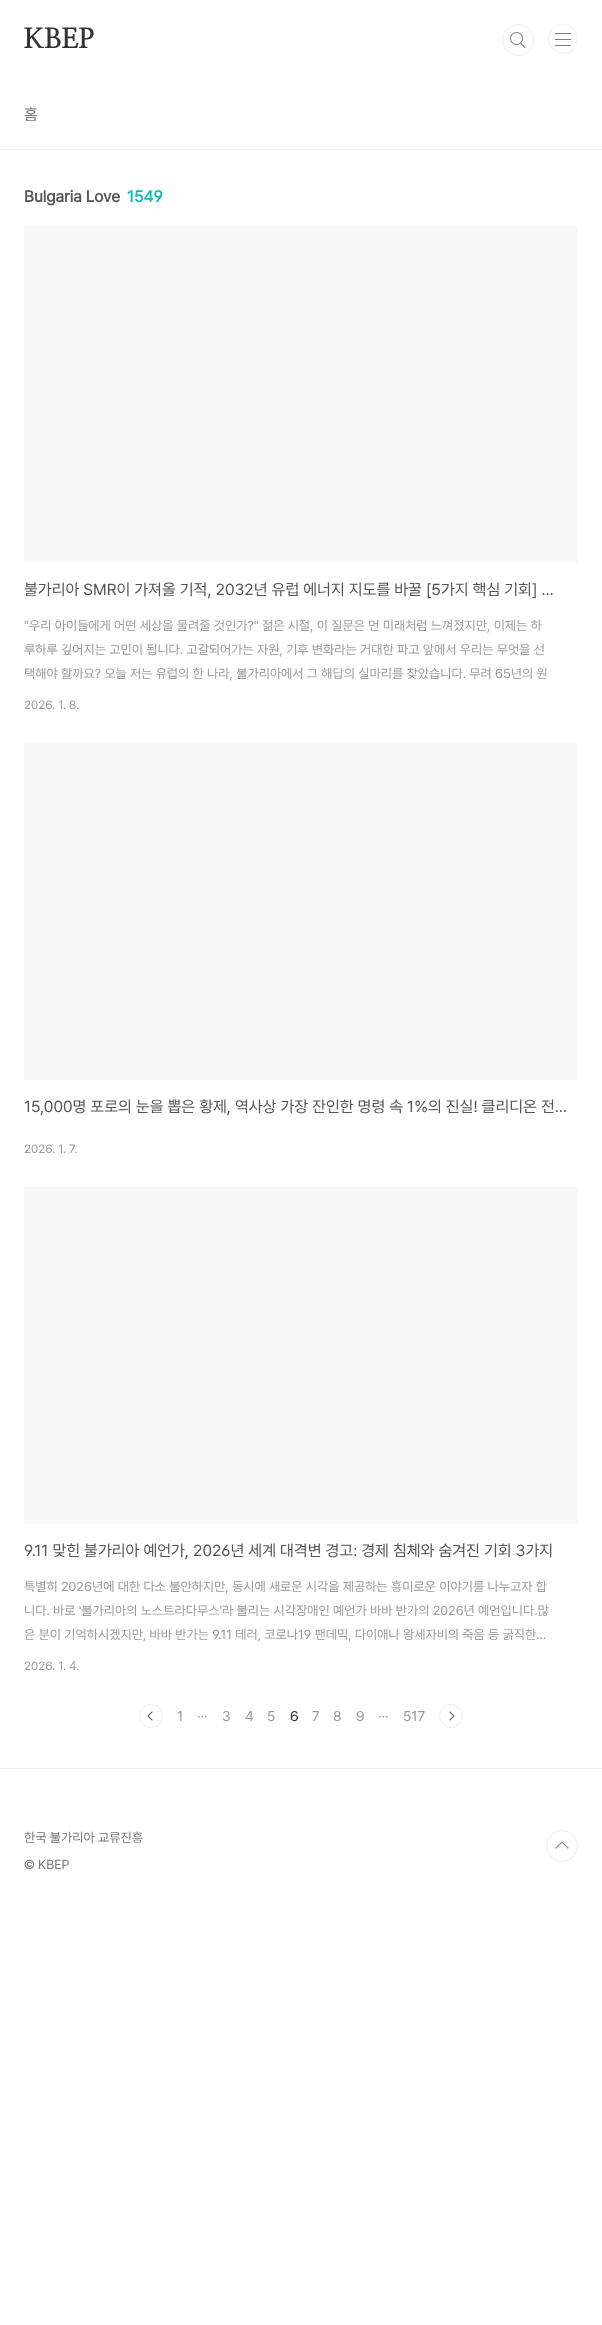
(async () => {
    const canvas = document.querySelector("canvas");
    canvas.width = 602;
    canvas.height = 2325;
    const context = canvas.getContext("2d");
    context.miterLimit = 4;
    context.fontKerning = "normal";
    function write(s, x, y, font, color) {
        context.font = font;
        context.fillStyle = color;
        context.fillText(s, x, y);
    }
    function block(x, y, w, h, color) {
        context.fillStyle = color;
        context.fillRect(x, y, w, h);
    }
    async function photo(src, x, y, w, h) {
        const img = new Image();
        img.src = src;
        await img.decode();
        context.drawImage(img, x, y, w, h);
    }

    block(0, 0, 602, 2325, "rgb(255, 255, 255)");
    block(0, 149, 602, 1, "rgb(238, 238, 238)");
    write("KBEP", 24, 48, "800 28px NanumMyeongjo", "rgb(51, 51, 51)");
    context.beginPath();
    context.arc(518, 40, 14.5, 0, Math.PI * 2);
    context.strokeStyle = "rgb(238, 238, 238)";
    context.stroke();
    context.fillStyle = "rgb(255, 255, 255)";
    context.beginPath();
    context.arc(518, 40, 16, 0, Math.PI * 2);
    context.fill();
    await photo("media/1.png", 510, 32, 16, 16);
    context.beginPath();
    context.arc(518, 40, 15.5, 0, Math.PI * 2);
    context.stroke();
    context.beginPath();
    context.arc(563, 39, 14.5, 0, Math.PI * 2);
    context.stroke();
    block(555, 33, 16, 1, "rgb(127, 127, 127)");
    block(555, 39, 16, 1, "rgb(127, 127, 127)");
    block(555, 45, 16, 1, "rgb(127, 127, 127)");
    write("홈", 24, 120, "16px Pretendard", "rgb(119, 119, 119)");
    write("Bulgaria Love", 24, 202, "bold 16px Pretendard", "rgb(85, 85, 85)");
    write("1549", 127, 202, "bold 16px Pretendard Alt", "rgb(4, 190, 184)");
    block(24, 226, 554, 337, "rgb(248, 248, 248)");
    write("불가리아 SMR이 가져올 기적, 2032년 유럽 에너지 지도를 바꿀 [5가지 핵심 기회] …", 24, 595, "16px Pretendard", "rgb(85, 85, 85)");
    write("\"우리 아이들에게 어떤 세상을 물려줄 것인가?\" 젊은 시절, 이 질문은 먼 미래처럼 느껴졌지만, 이제는 하", 24, 630, "13px Pretendard", "rgb(153, 153, 153)");
    write("루하루 깊어지는 고민이 됩니다. 고갈되어가는 자원, 기후 변화라는 거대한 파고 앞에서 우리는 무엇을 선", 24, 654, "13px Pretendard", "rgb(153, 153, 153)");
    write("택해야 할까요? 오늘 저는 유럽의 한 나라, 불가리아에서 그 해답의 실마리를 찾았습니다. 무려 65년의 원", 24, 678, "13px Pretendard", "rgb(153, 153, 153)");
    write("2026. 1. 8.", 24, 709, "12px Pretendard", "rgb(153, 153, 153)");
    block(24, 743, 554, 337, "rgb(248, 248, 248)");
    write("15,000명 포로의 눈을 뽑은 황제, 역사상 가장 잔인한 명령 속 1%의 진실! 클리디온 전…", 24, 1112, "16px Pretendard", "rgb(85, 85, 85)");
    write("2026. 1. 7.", 24, 1153, "12px Pretendard", "rgb(153, 153, 153)");
    block(24, 1187, 554, 337, "rgb(248, 248, 248)");
    write("9.11 맞힌 불가리아 예언가, 2026년 세계 대격변 경고: 경제 침체와 숨겨진 기회 3가지", 24, 1556, "16px Pretendard Alt", "rgb(85, 85, 85)");
    write("특별히 2026년에 대한 다소 불안하지만, 동시에 새로운 시각을 제공하는 흥미로운 이야기를 나누고자 합", 24, 1591, "13px Pretendard", "rgb(153, 153, 153)");
    write("니다. 바로 '불가리아의 노스트라다무스'라 불리는 시각장애인 예언가 바바 반가의 2026년 예언입니다.많", 24, 1615, "13px Pretendard", "rgb(153, 153, 153)");
    write("은 분이 기억하시겠지만, 바바 반가는 9.11 테러, 코로나19 팬데믹, 다이애나 왕세자비의 죽음 등 굵직한…", 24, 1639, "13px Pretendard Alt", "rgb(153, 153, 153)");
    write("2026. 1. 4.", 24, 1670, "12px Pretendard", "rgb(153, 153, 153)");
    await photo("media/2.png", 147, 1711, 6, 10);
    context.beginPath();
    context.arc(151, 1716, 11.5, 0, Math.PI * 2);
    context.stroke();
    write("1", 177, 1721, "14px Pretendard", "rgb(153, 153, 153)");
    write("···", 197, 1721, "14px Pretendard", "rgb(153, 153, 153)");
    write("3", 222, 1721, "14px Pretendard", "rgb(153, 153, 153)");
    write("4", 245, 1721, "14px Pretendard", "rgb(153, 153, 153)");
    write("5", 267, 1721, "14px Pretendard", "rgb(153, 153, 153)");
    write("6", 290, 1721, "14px Pretendard", "rgb(51, 51, 51)");
    write("7", 312, 1721, "14px Pretendard", "rgb(153, 153, 153)");
    write("8", 333, 1721, "14px Pretendard", "rgb(153, 153, 153)");
    write("9", 356, 1721, "14px Pretendard", "rgb(153, 153, 153)");
    write("···", 378, 1721, "14px Pretendard", "rgb(153, 153, 153)");
    write("517", 403, 1721, "14px Pretendard", "rgb(153, 153, 153)");
    await photo("media/3.png", 449, 1711, 6, 10);
    context.beginPath();
    context.arc(451, 1716, 11.5, 0, Math.PI * 2);
    context.stroke();
    block(0, 1768, 602, 1, "rgb(238, 238, 238)");
    write("한국 불가리아 교류진흥", 24, 1842, "13px Pretendard", "rgb(119, 119, 119)");
    await photo("media/4.png", 555, 1841, 14, 8);
    context.beginPath();
    context.arc(562, 1846, 15.5, 0, Math.PI * 2);
    context.stroke();
    write("© KBEP", 24, 1869, "13px Pretendard", "rgb(119, 119, 119)");
})();
